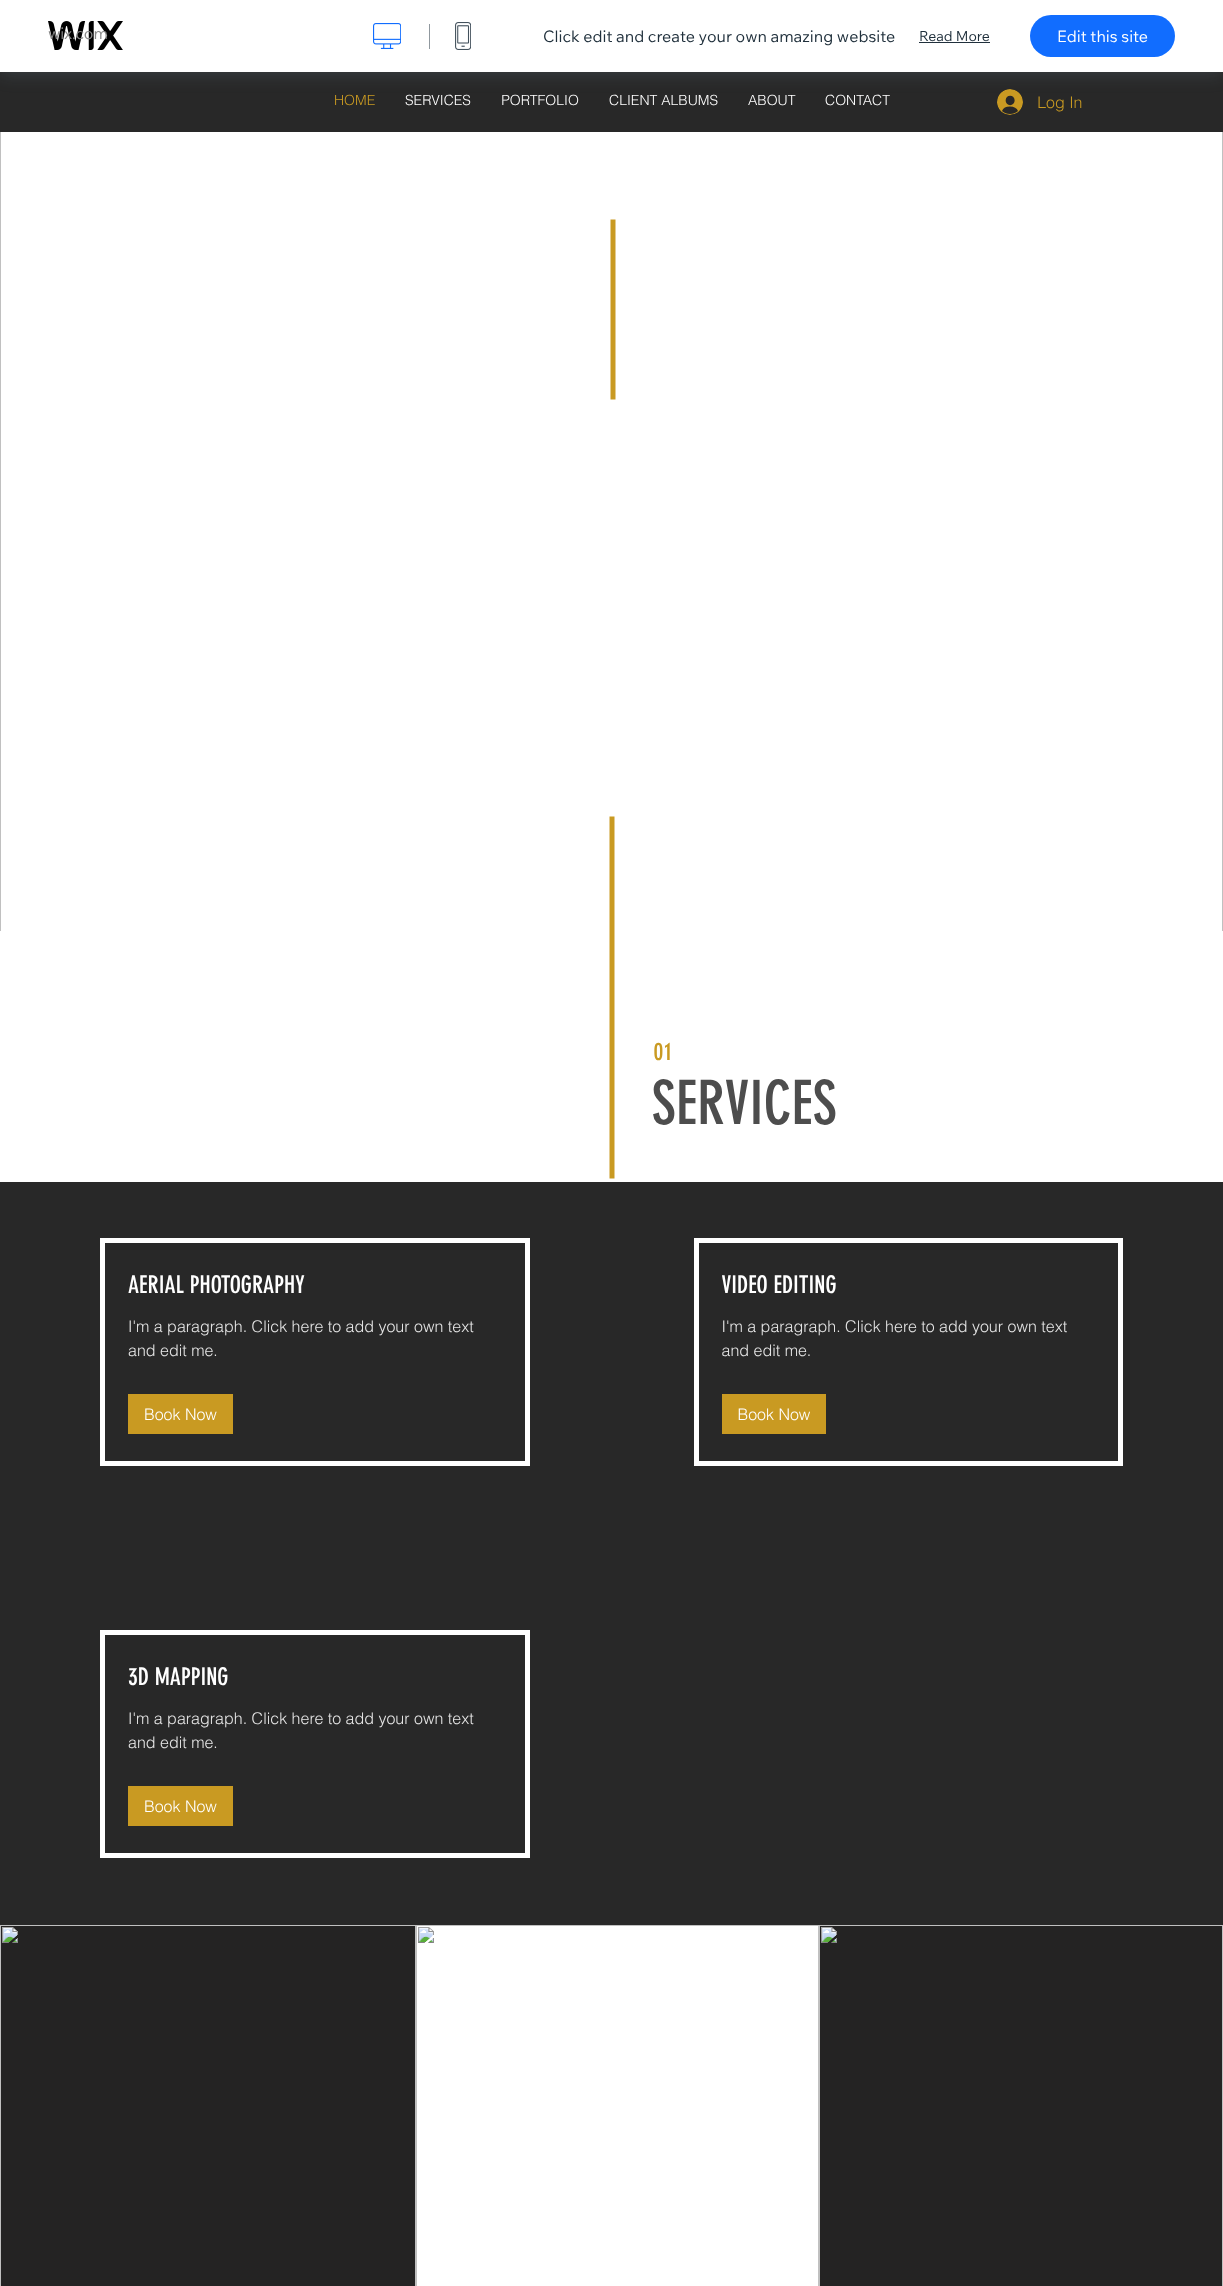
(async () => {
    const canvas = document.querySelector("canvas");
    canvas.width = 1223;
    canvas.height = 2286;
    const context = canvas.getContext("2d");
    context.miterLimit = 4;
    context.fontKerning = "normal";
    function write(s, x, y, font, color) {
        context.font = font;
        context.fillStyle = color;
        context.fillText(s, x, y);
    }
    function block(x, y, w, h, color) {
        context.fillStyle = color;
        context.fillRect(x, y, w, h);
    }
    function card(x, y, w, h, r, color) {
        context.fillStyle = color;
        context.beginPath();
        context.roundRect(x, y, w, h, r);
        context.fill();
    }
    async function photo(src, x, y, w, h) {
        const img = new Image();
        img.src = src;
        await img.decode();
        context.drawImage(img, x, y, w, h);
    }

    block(0, 0, 1223, 2286, "rgb(255, 255, 255)");
    await photo("media/4.png", 0, 72, 1223, 2214);
    context.fillStyle = "rgba(129, 162, 182, 0.2)";
    context.filter = "blur(9px)";
    context.beginPath();
    context.rect(0, 2, 1223, 72);
    context.fill();
    context.filter = "none";
    block(0, 0, 1223, 72, "rgb(255, 255, 255)");
    await photo("media/1.png", 48, 21, 75, 29);
    write("wix.com", 48, 39, "16px Wix Madefor Text", "rgb(136, 136, 136)");
    await photo("media/2.png", 373, 23, 28, 26);
    block(429, 24, 1, 25, "rgb(144, 152, 158)");
    await photo("media/3.png", 455, 22, 16, 28);
    write("Click edit and create your own amazing website", 543, 42, "16px Wix Madefor Text", "rgb(32, 48, 60)");
    write("Read More", 919, 41, "14px Wix Madefor Text", "rgb(32, 48, 60)");
    block(919, 42, 71, 1, "rgb(32, 48, 60)");
    card(1030, 15, 145, 42, 21, "rgb(17, 109, 255)");
    write("Edit this site", 1057, 42, "16px Wix Madefor Text", "rgb(255, 255, 255)");
})();
